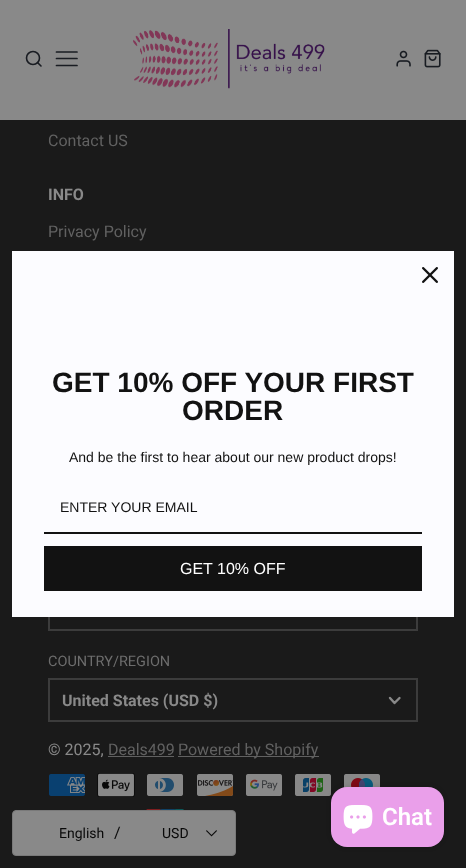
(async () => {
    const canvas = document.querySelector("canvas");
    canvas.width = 466;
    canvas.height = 868;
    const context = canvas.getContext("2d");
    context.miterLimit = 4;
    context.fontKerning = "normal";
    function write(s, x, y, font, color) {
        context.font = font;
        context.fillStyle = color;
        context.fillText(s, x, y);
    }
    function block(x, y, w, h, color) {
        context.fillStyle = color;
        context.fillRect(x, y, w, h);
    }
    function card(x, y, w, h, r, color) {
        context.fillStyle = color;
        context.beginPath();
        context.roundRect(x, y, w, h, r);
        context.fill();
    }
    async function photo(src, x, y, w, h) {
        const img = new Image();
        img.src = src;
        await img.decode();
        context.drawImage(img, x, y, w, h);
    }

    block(0, 0, 466, 868, "rgb(26, 26, 26)");
    block(0, 0, 466, 120, "rgb(137, 137, 137)");
    context.beginPath();
    context.arc(33, 58, 6.5, 0, Math.PI * 2);
    context.strokeStyle = "rgb(25, 28, 34)";
    context.lineWidth = 1.6;
    context.stroke();
    context.beginPath();
    context.moveTo(41, 66);
    context.lineTo(37.5, 62.5);
    context.lineCap = "round";
    context.lineJoin = "round";
    context.stroke();
    context.beginPath();
    context.moveTo(56.5, 58.5);
    context.lineTo(77, 58.5);
    context.moveTo(56.5, 52);
    context.lineTo(77, 52);
    context.moveTo(56.5, 65.5);
    context.lineTo(77, 65.5);
    context.lineWidth = 1.7;
    context.stroke();
    await photo("media/1.png", 133, 29, 192, 60);
    await photo("media/2.png", 396, 50, 15, 17);
    await photo("media/3.png", 424, 49, 17, 19);
    write("Contact US", 48, 146, "16px Roboto", "rgb(97, 97, 97)");
    write("INFO", 48, 200, "bold 16px Roboto", "rgb(137, 137, 137)");
    write("Privacy Policy", 48, 237, "16px Roboto", "rgb(97, 97, 97)");
    context.strokeStyle = "rgb(60, 60, 60)";
    context.lineWidth = 2;
    context.lineJoin = "miter";
    context.strokeRect(49, 588, 368, 42);
    write("COUNTRY/REGION", 48, 666, "14.5px Roboto", "rgb(109, 109, 109)");
    context.strokeRect(49, 679, 368, 42);
    write("United States (USD $)", 62, 706, "bold 16px Roboto", "rgb(137, 137, 137)");
    context.beginPath();
    context.moveTo(390, 698);
    context.lineTo(394.5, 703);
    context.lineTo(399.5, 698);
    context.strokeStyle = "rgb(137, 137, 137)";
    context.lineWidth = 2.4;
    context.lineJoin = "round";
    context.stroke();
    write("© 2025,", 48, 755, "16px Roboto", "rgb(137, 137, 137)");
    write("Deals499", 108, 755, "16px Roboto", "rgb(97, 97, 97)");
    block(108, 756, 66, 1, "rgb(97, 97, 97)");
    block(178, 756, 141, 1, "rgb(97, 97, 97)");
    write("Powered by Shopify", 178, 755, "16px Roboto", "rgb(97, 97, 97)");
    await photo("media/4.png", 49, 774, 36, 22);
    await photo("media/5.png", 97, 773, 38, 24);
    await photo("media/6.png", 147, 774, 36, 22);
    await photo("media/7.png", 197, 774, 36, 22);
    await photo("media/8.png", 246, 774, 36, 22);
    await photo("media/9.png", 295, 774, 36, 22);
    await photo("media/10.png", 344, 774, 36, 14);
    await photo("media/11.png", 146, 809, 38, 1);
    await photo("media/12.png", 232, 810, 1, 1);
    block(12, 251, 442, 366, "rgb(252, 252, 255)");
    await photo("media/13.png", 422, 267, 16, 16);
    write("GET 10% OFF YOUR FIRST", 52, 392, "bold 28px Liberation Sans", "rgb(18, 18, 18)");
    write("ORDER", 182, 420, "bold 28px Liberation Sans", "rgb(18, 18, 18)");
    write("And be the first to hear about our new product drops!", 69, 462, "14px Liberation Sans", "rgb(18, 18, 18)");
    block(44, 532, 378, 2, "rgb(18, 18, 18)");
    write("ENTER YOUR EMAIL", 60, 512, "14px Liberation Sans", "rgb(18, 18, 18)");
    block(44, 546, 378, 45, "rgb(18, 18, 18)");
    write("GET 10% OFF", 180, 574, "16px Liberation Sans", "rgb(255, 255, 255)");
    context.fillStyle = "rgba(0, 0, 0, 0.15)";
    context.filter = "blur(2.5px)";
    context.beginPath();
    context.roundRect(331, 787, 113, 60, 16);
    context.fill();
    context.filter = "none";
    card(331, 787, 113, 60, 16, "rgb(234, 159, 234)");
    await photo("media/14.png", 343, 805, 30, 29);
    write("Chat", 382, 825, "600 24px Roboto", "rgb(255, 255, 255)");
    context.fillStyle = "rgb(137, 137, 137)";
    context.beginPath();
    context.roundRect(12.5, 810.5, 223, 45, 3.5);
    context.fill();
    context.strokeStyle = "rgb(121, 121, 121)";
    context.lineWidth = 1;
    context.lineJoin = "miter";
    context.stroke();
    write("English", 59, 838, "14px Roboto", "rgb(9, 9, 9)");
    write("/", 114, 838, "16px Roboto", "rgb(9, 9, 9)");
    write("USD", 162, 838, "14px Roboto", "rgb(9, 9, 9)");
    await photo("media/15.png", 206, 830, 11, 7);
})();
